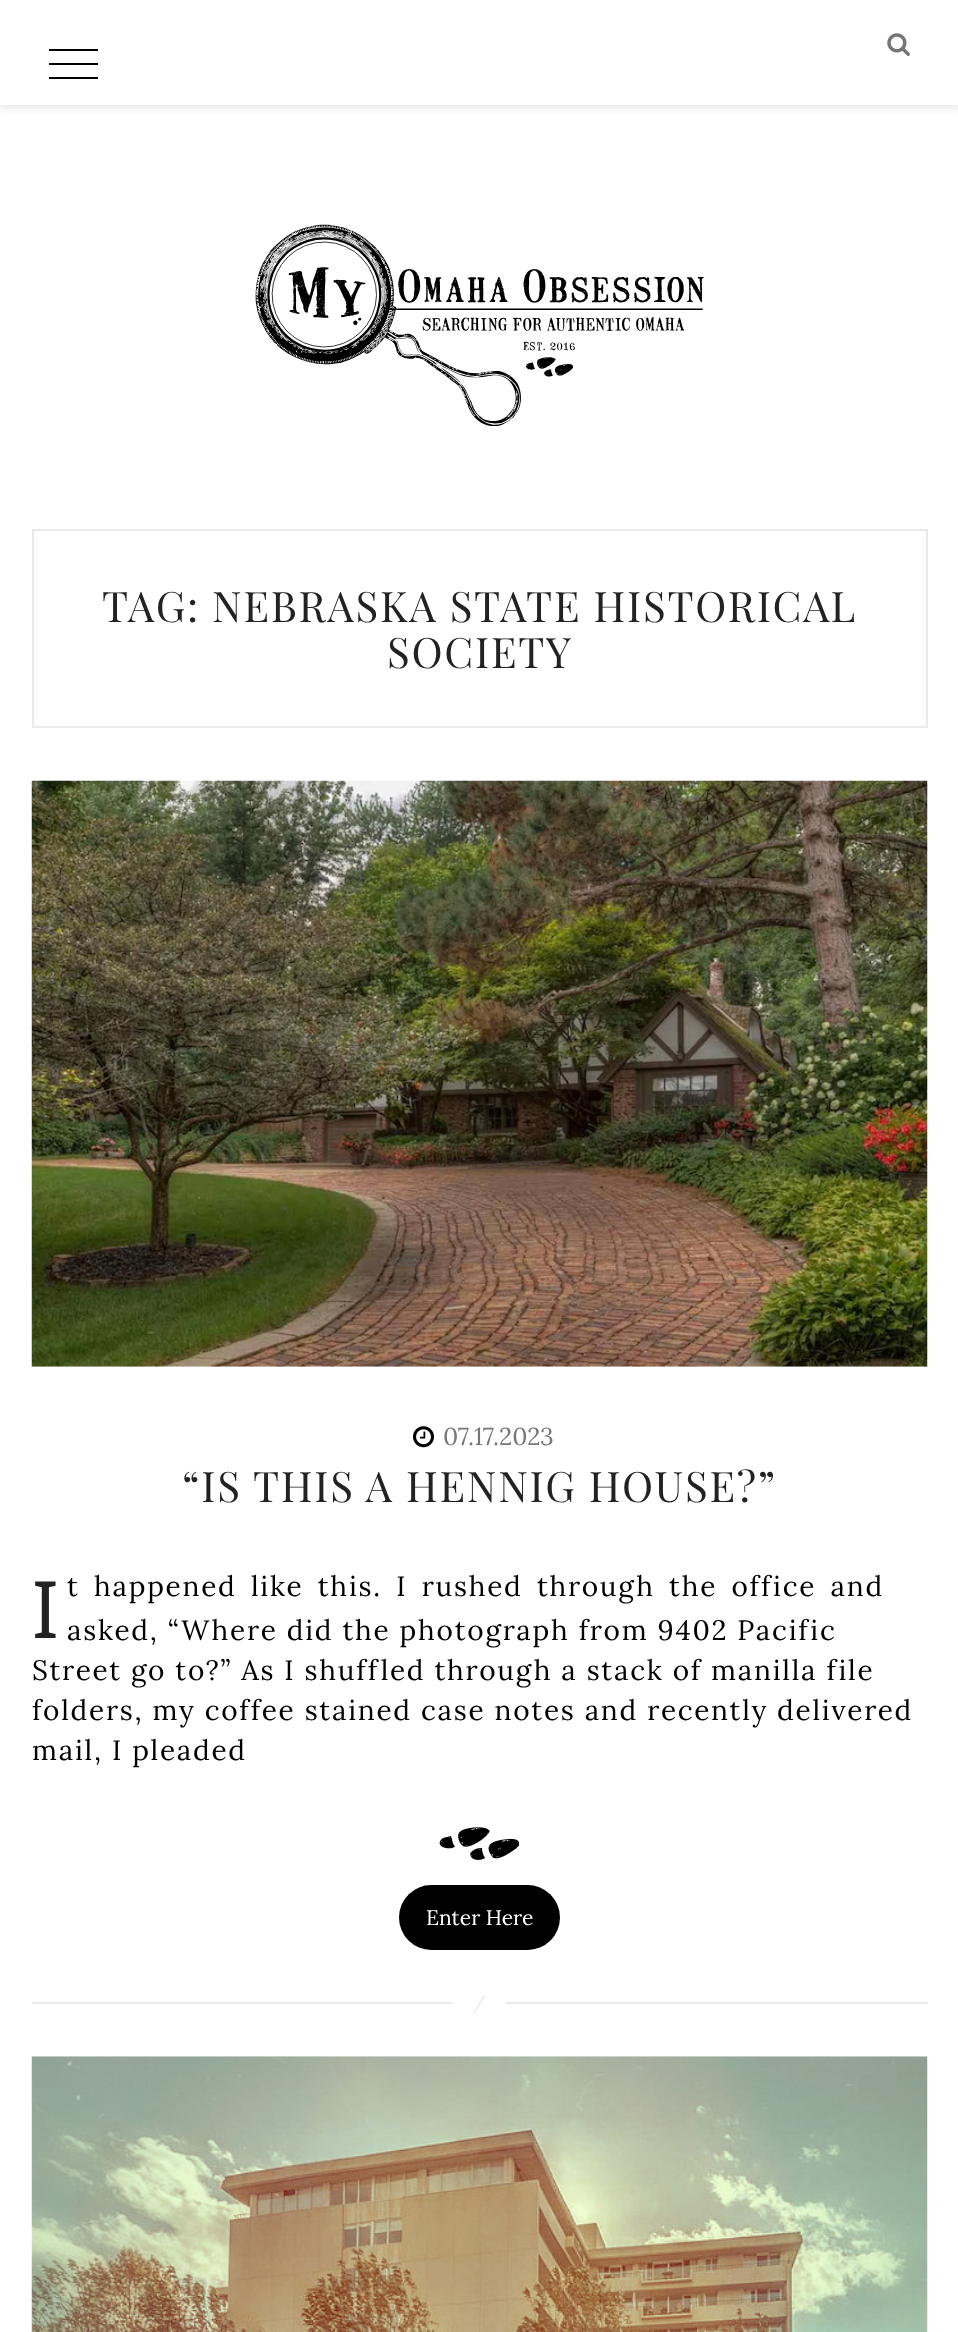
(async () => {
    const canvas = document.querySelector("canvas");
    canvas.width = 958;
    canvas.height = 2332;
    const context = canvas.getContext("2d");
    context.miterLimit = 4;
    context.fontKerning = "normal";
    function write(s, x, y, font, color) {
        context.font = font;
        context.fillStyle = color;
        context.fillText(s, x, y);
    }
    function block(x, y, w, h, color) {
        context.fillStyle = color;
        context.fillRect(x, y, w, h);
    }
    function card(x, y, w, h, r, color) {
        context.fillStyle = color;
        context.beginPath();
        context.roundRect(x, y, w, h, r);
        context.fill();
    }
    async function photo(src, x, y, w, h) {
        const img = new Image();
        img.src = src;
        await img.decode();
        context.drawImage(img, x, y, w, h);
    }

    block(0, 0, 958, 2332, "rgb(255, 255, 255)");
    context.save();
    context.beginPath();
    context.rect(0, 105, 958, 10);
    context.clip();
    context.fillStyle = "rgba(190, 190, 190, 0.47)";
    context.filter = "blur(4.5px)";
    context.beginPath();
    context.rect(0, 2, 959, 105);
    context.fill();
    context.filter = "none";
    context.restore();
    await photo("media/1.png", 887, 33, 23, 23);
    block(49, 49, 49, 2, "rgb(0, 0, 0)");
    block(49, 63, 49, 2, "rgb(0, 0, 0)");
    block(49, 77, 49, 2, "rgb(0, 0, 0)");
    await photo("media/2.png", 255, 224, 449, 202);
    context.strokeStyle = "rgb(234, 234, 234)";
    context.lineWidth = 2;
    context.strokeRect(33, 530, 894, 197);
    context.letterSpacing = "1.75px";
    write("TAG: NEBRASKA STATE HISTORICAL", 102, 622, "42px Playfair Display", "rgb(34, 34, 34)");
    write("SOCIETY", 387, 668, "42px Playfair Display", "rgb(34, 34, 34)");
    block(32, 2002, 896, 2, "rgb(234, 234, 234)");
    await photo("media/3.png", 31, 780, 897, 587);
    await photo("media/4.png", 413, 1426, 21, 22);
    context.letterSpacing = "0px";
    write("07.17.2023", 443, 1445, "24.5px Lora", "rgb(119, 119, 119)");
    context.letterSpacing = "1.75px";
    write("“IS THIS A HENNIG HOUSE?”", 182, 1502, "42px Playfair Display", "rgb(34, 34, 34)");
    write("I", 32, 1638, "79px Noto Sans", "rgb(34, 34, 34)");
    context.wordSpacing = "5.25px";
    write("t happened like this. I rushed through the office and", 67, 1596, "28px Lora", "rgb(0, 0, 0)");
    context.wordSpacing = "0px";
    write("asked, “Where did the photograph from 9402 Pacific", 67, 1640, "28px Lora", "rgb(0, 0, 0)");
    write("Street go to?” As I shuffled through a stack of manilla file", 32, 1680, "28px Lora", "rgb(0, 0, 0)");
    write("folders, my coffee stained case notes and recently delivered", 32, 1720, "28px Lora", "rgb(0, 0, 0)");
    write("mail, I pleaded", 32, 1760, "28px Lora", "rgb(0, 0, 0)");
    await photo("media/5.png", 439, 1827, 81, 33);
    card(399, 1885, 161, 65, 32.5, "rgb(0, 0, 0)");
    context.letterSpacing = "0px";
    write("Enter Here", 426, 1925, "21px Lora", "rgb(255, 255, 255)");
    block(453, 2002, 53, 2, "rgb(255, 255, 255)");
    write("/", 473, 2009, "18px Lora", "rgb(234, 234, 234)");
    await photo("media/6.png", 31, 2056, 897, 276);
})();
